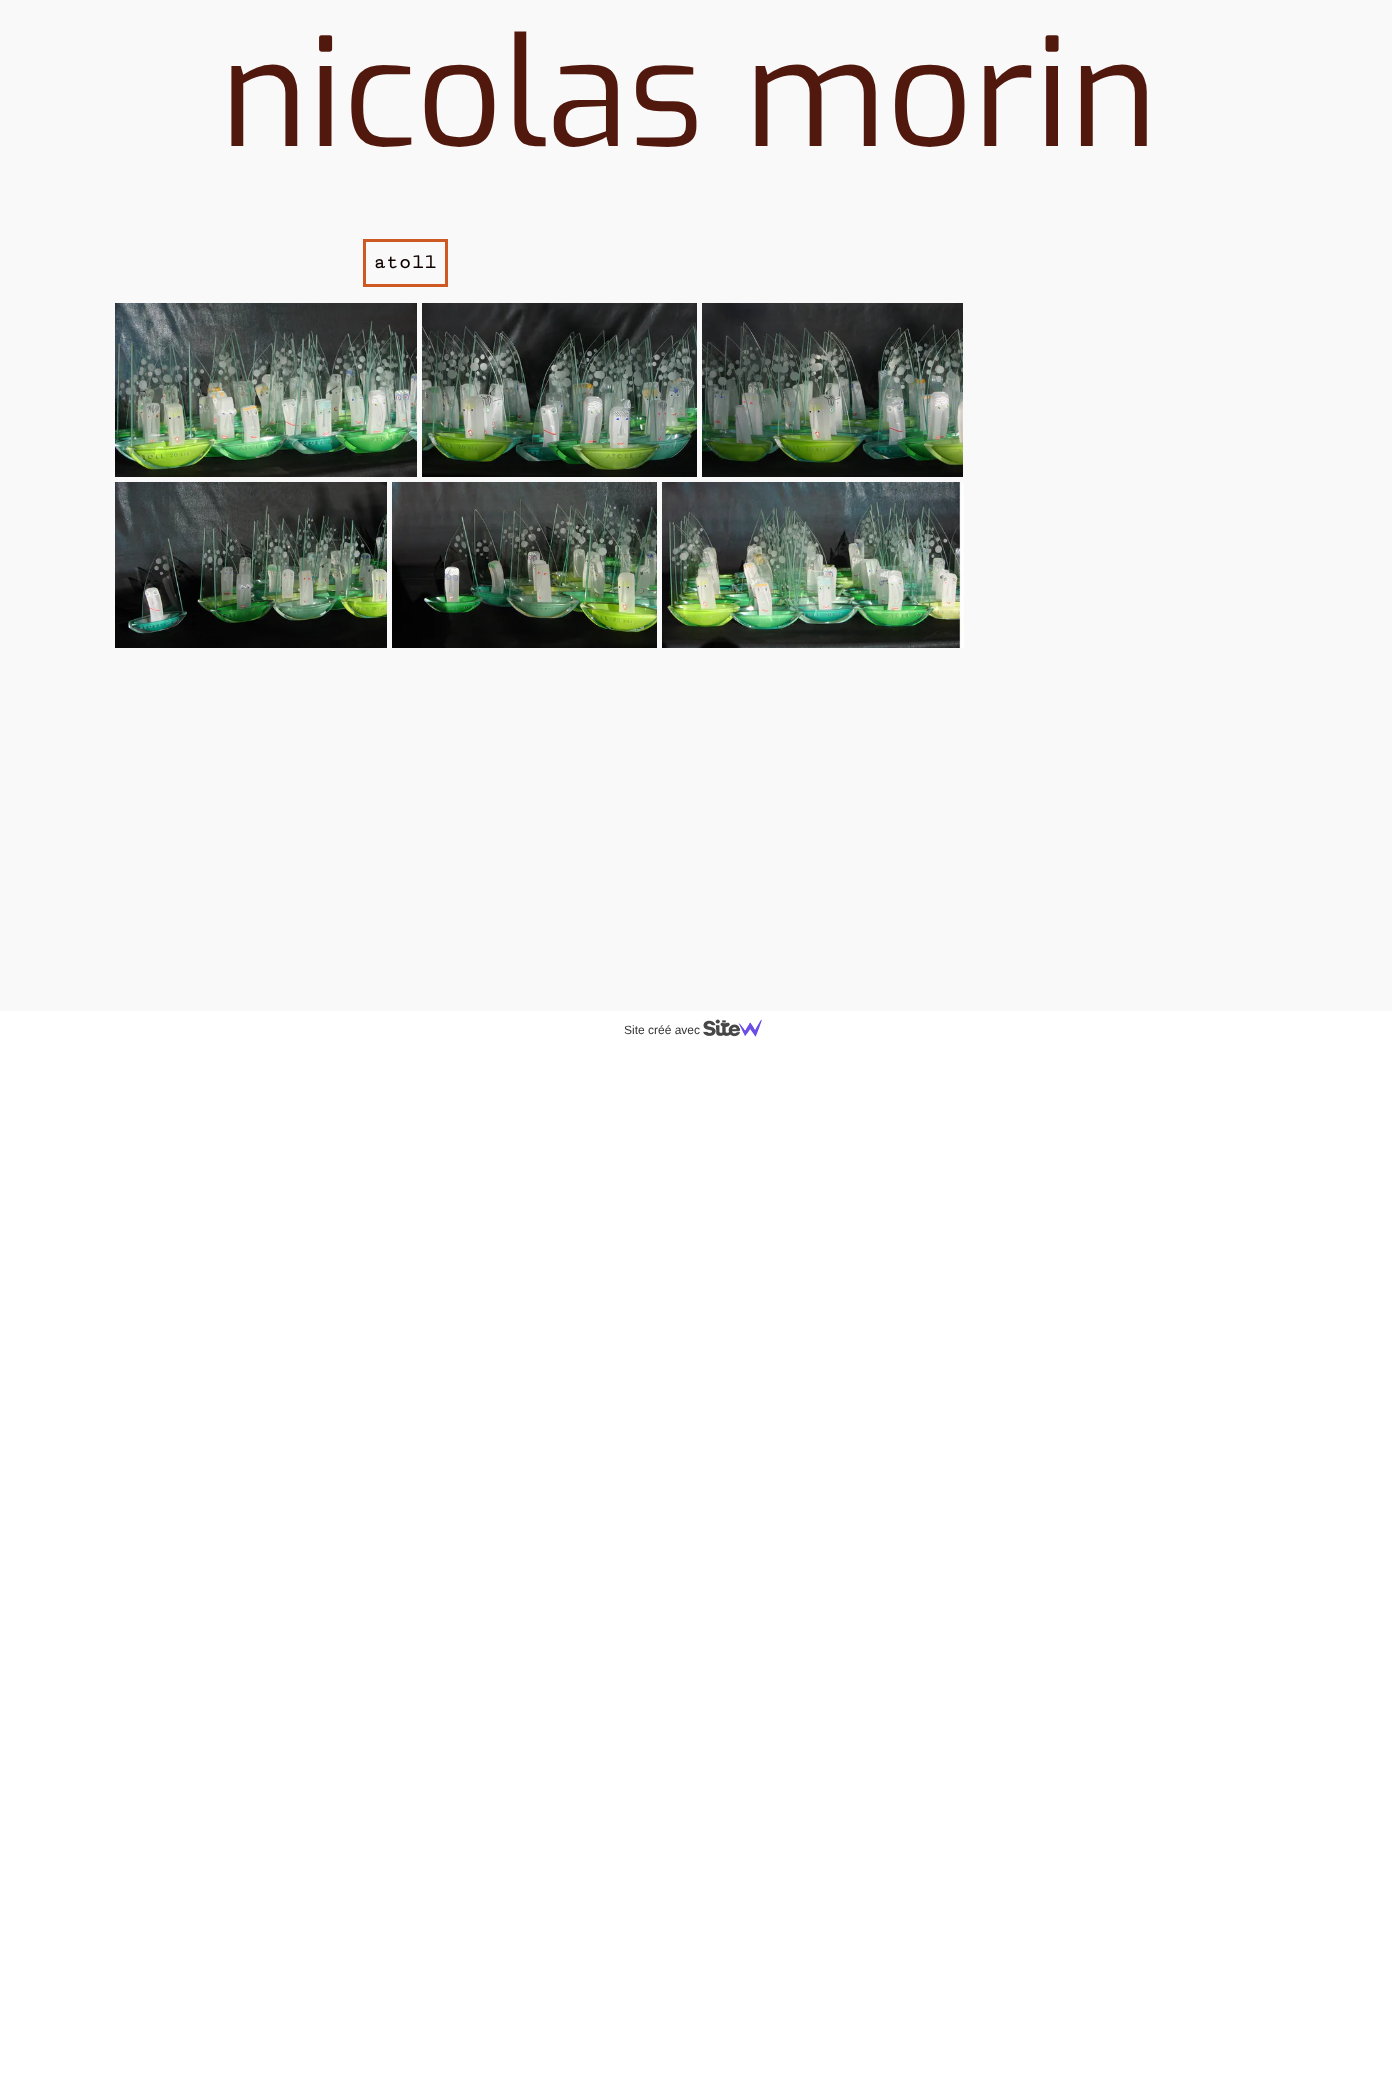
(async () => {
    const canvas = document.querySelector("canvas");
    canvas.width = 1393;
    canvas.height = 2083;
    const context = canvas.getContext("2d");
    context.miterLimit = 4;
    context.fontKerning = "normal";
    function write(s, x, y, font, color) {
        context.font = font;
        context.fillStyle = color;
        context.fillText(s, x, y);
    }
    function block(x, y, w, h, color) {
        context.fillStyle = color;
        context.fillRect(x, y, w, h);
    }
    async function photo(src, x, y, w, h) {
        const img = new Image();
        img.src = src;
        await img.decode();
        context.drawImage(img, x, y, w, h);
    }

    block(0, 0, 1393, 2083, "rgb(255, 255, 255)");
    block(0, 0, 1392, 1011, "rgb(249, 249, 249)");
    write("nicolas morin", 220, 146, "150px Exo", "rgb(81, 24, 14)");
    block(363, 239, 3, 48, "rgb(206, 89, 34)");
    block(363, 239, 85, 3, "rgb(206, 89, 34)");
    write("atoll", 373, 268, "bold 21px Cutive Mono", "rgb(16, 1, 1)");
    block(363, 284, 85, 3, "rgb(206, 89, 34)");
    block(445, 239, 3, 48, "rgb(206, 89, 34)");
    await photo("media/1.png", 115, 303, 302, 174);
    await photo("media/2.png", 422, 303, 275, 174);
    await photo("media/3.png", 702, 303, 261, 174);
    await photo("media/4.png", 115, 482, 272, 166);
    await photo("media/5.png", 392, 482, 265, 166);
    await photo("media/6.png", 662, 482, 302, 166);
    write("Site créé avec", 624, 1034, "12px Liberation Sans", "rgb(51, 51, 51)");
    await photo("media/7.png", 703, 1019, 59, 18);
})();
